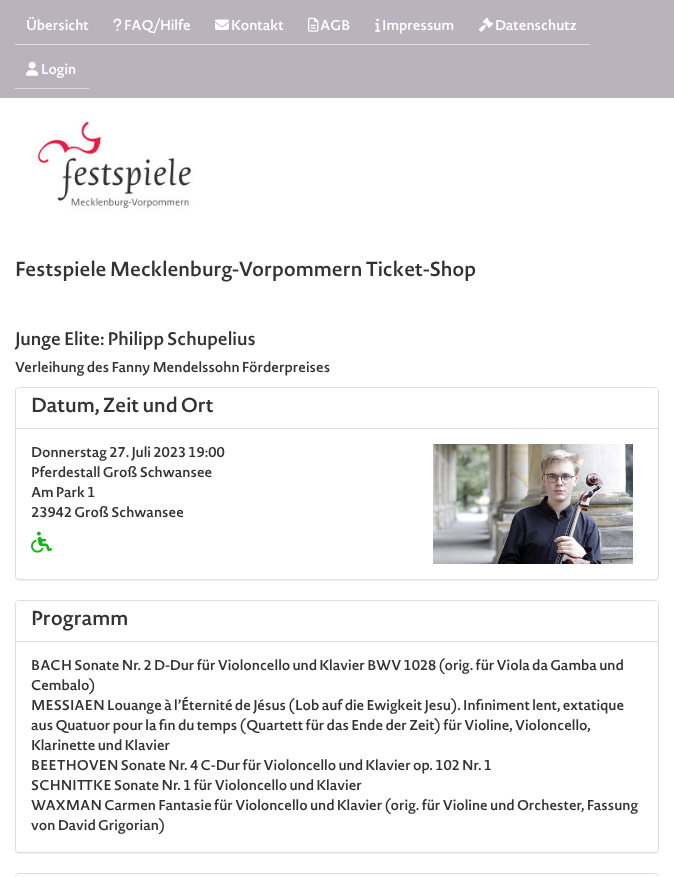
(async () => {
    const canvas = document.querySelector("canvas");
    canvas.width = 674;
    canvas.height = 877;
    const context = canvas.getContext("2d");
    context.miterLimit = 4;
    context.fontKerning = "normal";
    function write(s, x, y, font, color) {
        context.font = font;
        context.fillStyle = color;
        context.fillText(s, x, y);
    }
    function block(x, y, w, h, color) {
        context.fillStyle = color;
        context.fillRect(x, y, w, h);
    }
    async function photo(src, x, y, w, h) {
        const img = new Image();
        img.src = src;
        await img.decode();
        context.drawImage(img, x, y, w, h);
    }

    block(0, 0, 674, 877, "rgb(255, 255, 255)");
    block(0, 0, 674, 98, "rgb(186, 178, 189)");
    block(15, 44, 575, 1, "rgb(221, 221, 221)");
    write("Übersicht", 26, 30, "600 14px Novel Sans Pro", "rgb(255, 255, 255)");
    await photo("media/1.png", 113, 18, 9, 13);
    write("FAQ/Hilfe", 124, 30, "600 14px Novel Sans Pro", "rgb(255, 255, 255)");
    await photo("media/2.png", 215, 19, 14, 11);
    write("Kontakt", 231, 30, "600 14px Novel Sans Pro", "rgb(255, 255, 255)");
    await photo("media/3.png", 308, 17, 11, 15);
    write("AGB", 320, 30, "600 14px Novel Sans Pro", "rgb(255, 255, 255)");
    await photo("media/4.png", 375, 18, 6, 14);
    write("Impressum", 382, 30, "600 14px Novel Sans Pro", "rgb(255, 255, 255)");
    await photo("media/5.png", 479, 17, 14, 15);
    write("Datenschutz", 495, 30, "600 14px Novel Sans Pro", "rgb(255, 255, 255)");
    block(15, 88, 74, 1, "rgb(221, 221, 221)");
    await photo("media/6.png", 26, 61, 13, 15);
    write("Login", 41, 74, "600 14px Novel Sans Pro", "rgb(255, 255, 255)");
    await photo("media/7.png", 35, 118, 159, 92);
    write("Festspiele Mecklenburg-Vorpommern Ticket-Shop", 15, 276, "600 20px Novel Sans Pro", "rgb(51, 51, 51)");
    write("Junge Elite: Philipp Schupelius", 15, 345, "600 18px Novel Sans Pro", "rgb(51, 51, 51)");
    write("Verleihung des Fanny Mendelssohn Förderpreises", 15, 372, "600 14px Novel Sans Pro", "rgb(51, 51, 51)");
    context.fillStyle = "rgba(0, 0, 0, 0.05)";
    context.filter = "blur(0.5px)";
    context.beginPath();
    context.roundRect(15, 388, 644, 193, 4);
    context.fill();
    context.filter = "none";
    context.fillStyle = "rgb(255, 255, 255)";
    context.beginPath();
    context.roundRect(15.5, 387.5, 643, 192, 3.5);
    context.fill();
    context.strokeStyle = "rgb(221, 221, 221)";
    context.stroke();
    context.beginPath();
    context.roundRect(16, 388, 642, 41, [3, 3, 0, 0]);
    context.fill();
    block(16, 428, 642, 1, "rgb(221, 221, 221)");
    write("Datum, Zeit und Ort", 31, 412, "600 20px Novel Sans Pro", "rgb(51, 51, 51)");
    write("Donnerstag 27. Juli 2023 19:00", 31, 457, "600 14px Novel Sans Pro", "rgb(51, 51, 51)");
    write("Pferdestall Groß Schwansee", 31, 477, "600 14px Novel Sans Pro", "rgb(51, 51, 51)");
    write("Am Park 1", 31, 497, "600 14px Novel Sans Pro", "rgb(51, 51, 51)");
    write("23942 Groß Schwansee", 31, 517, "600 14px Novel Sans Pro", "rgb(51, 51, 51)");
    await photo("media/8.png", 31, 531, 21, 22);
    await photo("media/9.png", 433, 444, 200, 120);
    context.fillStyle = "rgba(0, 0, 0, 0.05)";
    context.filter = "blur(0.5px)";
    context.beginPath();
    context.roundRect(15, 601, 644, 253, 4);
    context.fill();
    context.filter = "none";
    context.fillStyle = "rgb(255, 255, 255)";
    context.beginPath();
    context.roundRect(15.5, 600.5, 643, 252, 3.5);
    context.fill();
    context.stroke();
    context.beginPath();
    context.roundRect(16, 601, 642, 41, [3, 3, 0, 0]);
    context.fill();
    block(16, 641, 642, 1, "rgb(221, 221, 221)");
    write("Programm", 31, 625, "600 20px Novel Sans Pro", "rgb(51, 51, 51)");
    write("BACH Sonate Nr. 2 D-Dur für Violoncello und Klavier BWV 1028 (orig. für Viola da Gamba und", 31, 670, "600 14px Novel Sans Pro", "rgb(51, 51, 51)");
    write("Cembalo)", 31, 690, "600 14px Novel Sans Pro", "rgb(51, 51, 51)");
    write("MESSIAEN Louange à l’Éternité de Jésus (Lob auf die Ewigkeit Jesu). Infiniment lent, extatique", 31, 710, "600 14px Novel Sans Pro", "rgb(51, 51, 51)");
    write("aus Quatuor pour la fin du temps (Quartett für das Ende der Zeit) für Violine, Violoncello,", 31, 730, "600 14px Novel Sans Pro", "rgb(51, 51, 51)");
    write("Klarinette und Klavier", 31, 750, "600 14px Novel Sans Pro", "rgb(51, 51, 51)");
    write("BEETHOVEN Sonate Nr. 4 C-Dur für Violoncello und Klavier op. 102 Nr. 1", 31, 770, "600 14px Novel Sans Pro", "rgb(51, 51, 51)");
    write("SCHNITTKE Sonate Nr. 1 für Violoncello und Klavier", 31, 790, "600 14px Novel Sans Pro", "rgb(51, 51, 51)");
    write("WAXMAN Carmen Fantasie für Violoncello und Klavier (orig. für Violine und Orchester, Fassung", 31, 810, "600 14px Novel Sans Pro", "rgb(51, 51, 51)");
    write("von David Grigorian)", 31, 830, "600 14px Novel Sans Pro", "rgb(51, 51, 51)");
    context.beginPath();
    context.roundRect(15.5, 873.5, 643, 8, 3.5);
    context.stroke();
    context.fillStyle = "rgb(255, 255, 255)";
    context.beginPath();
    context.moveTo(19, 874);
    context.lineTo(655, 874);
    context.bezierCurveTo(656.5, 874, 658, 875.5, 658, 877);
    context.lineTo(658, 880);
    context.lineTo(16, 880);
    context.lineTo(16, 877);
    context.bezierCurveTo(16, 875.5, 17.5, 874, 19, 874);
    context.closePath();
    context.fill();
})();
